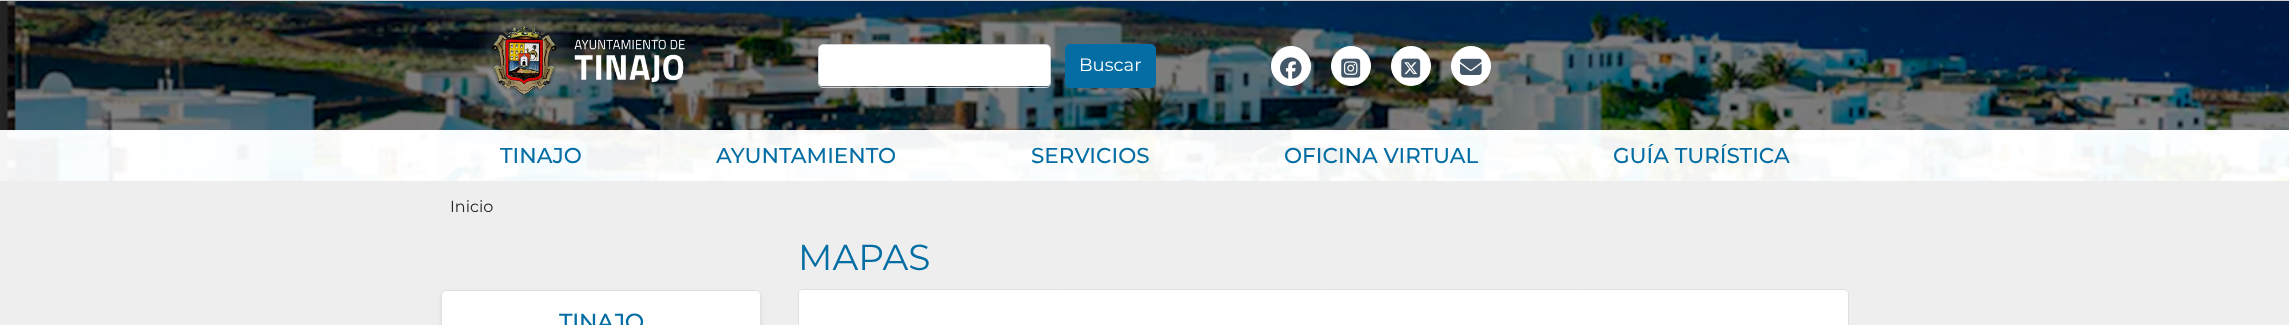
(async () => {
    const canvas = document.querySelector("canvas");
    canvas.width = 2289;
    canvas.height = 325;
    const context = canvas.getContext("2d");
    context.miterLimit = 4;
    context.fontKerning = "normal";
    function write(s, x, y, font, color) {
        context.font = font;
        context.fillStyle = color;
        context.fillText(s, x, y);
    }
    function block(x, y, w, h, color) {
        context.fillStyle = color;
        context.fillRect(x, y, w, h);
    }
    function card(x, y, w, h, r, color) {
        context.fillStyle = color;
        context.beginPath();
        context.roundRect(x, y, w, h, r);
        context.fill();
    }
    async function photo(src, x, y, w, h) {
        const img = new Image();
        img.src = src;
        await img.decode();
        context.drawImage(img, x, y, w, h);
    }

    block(0, 0, 2289, 325, "rgb(255, 255, 255)");
    await photo("media/1.png", 0, 1, 2289, 180);
    block(0, 0, 2289, 1, "rgb(204, 204, 204)");
    block(0, 1, 2289, 129, "rgba(0, 0, 0, 0.5)");
    await photo("media/2.png", 479, 16, 206, 92);
    card(819, 45, 231, 41, 3, "rgb(255, 255, 255)");
    context.beginPath();
    context.roundRect(818.5, 44.5, 232, 43, 4.5);
    context.strokeStyle = "rgb(206, 212, 218)";
    context.stroke();
    context.fillStyle = "rgb(4, 109, 163)";
    context.beginPath();
    context.roundRect(1065.5, 44.5, 90, 43, 4.5);
    context.fill();
    context.strokeStyle = "rgb(4, 109, 163)";
    context.stroke();
    write("Buscar", 1079, 71, "18px Montserrat", "rgb(255, 255, 255)");
    context.beginPath();
    context.arc(1291, 66, 19.5, 0, Math.PI * 2);
    context.fill();
    context.strokeStyle = "rgb(255, 255, 255)";
    context.stroke();
    await photo("media/3.png", 1280, 57, 22, 22);
    context.beginPath();
    context.arc(1351, 66, 19.5, 0, Math.PI * 2);
    context.fill();
    context.stroke();
    await photo("media/4.png", 1341, 58, 20, 20);
    context.beginPath();
    context.arc(1411, 66, 19.5, 0, Math.PI * 2);
    context.fill();
    context.stroke();
    await photo("media/5.png", 1401, 58, 20, 20);
    context.beginPath();
    context.arc(1471, 66, 19.5, 0, Math.PI * 2);
    context.fill();
    context.stroke();
    await photo("media/6.png", 1460, 58, 22, 17);
    block(0, 130, 2289, 51, "rgba(255, 255, 255, 0.95)");
    write("TINAJO", 500, 163, "500 21.5px Montserrat", "rgb(4, 109, 163)");
    write("AYUNTAMIENTO", 716, 163, "500 21.5px Montserrat", "rgb(4, 109, 163)");
    write("SERVICIOS", 1031, 163, "500 21.5px Montserrat", "rgb(4, 109, 163)");
    write("OFICINA VIRTUAL", 1284, 163, "500 21.5px Montserrat", "rgb(4, 109, 163)");
    write("GUÍA TURÍSTICA", 1613, 163, "500 21.5px Montserrat", "rgb(4, 109, 163)");
    block(0, 181, 2289, 144, "rgb(238, 238, 238)");
    write("Inicio", 450, 212, "16px Montserrat", "rgb(33, 37, 41)");
    write("MAPAS", 798, 270, "36px Montserrat", "rgb(4, 109, 163)");
    card(798, 289, 1051, 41, 5, "rgba(255, 255, 255, 0.95)");
    context.beginPath();
    context.roundRect(798.5, 289.5, 1050, 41, 4.5);
    context.strokeStyle = "rgba(0, 0, 0, 0.12)";
    context.stroke();
    context.fillStyle = "rgba(0, 0, 0, 0.07)";
    context.filter = "blur(2px)";
    context.beginPath();
    context.roundRect(441, 293, 320, 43, 5);
    context.fill();
    context.filter = "none";
    card(441, 290, 320, 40, 5, "rgb(255, 255, 255)");
    context.beginPath();
    context.roundRect(441.5, 290.5, 319, 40, 4.5);
    context.stroke();
    write("TINAJO", 559, 330, "bold 22.5px Montserrat", "rgb(4, 109, 163)");
})();
